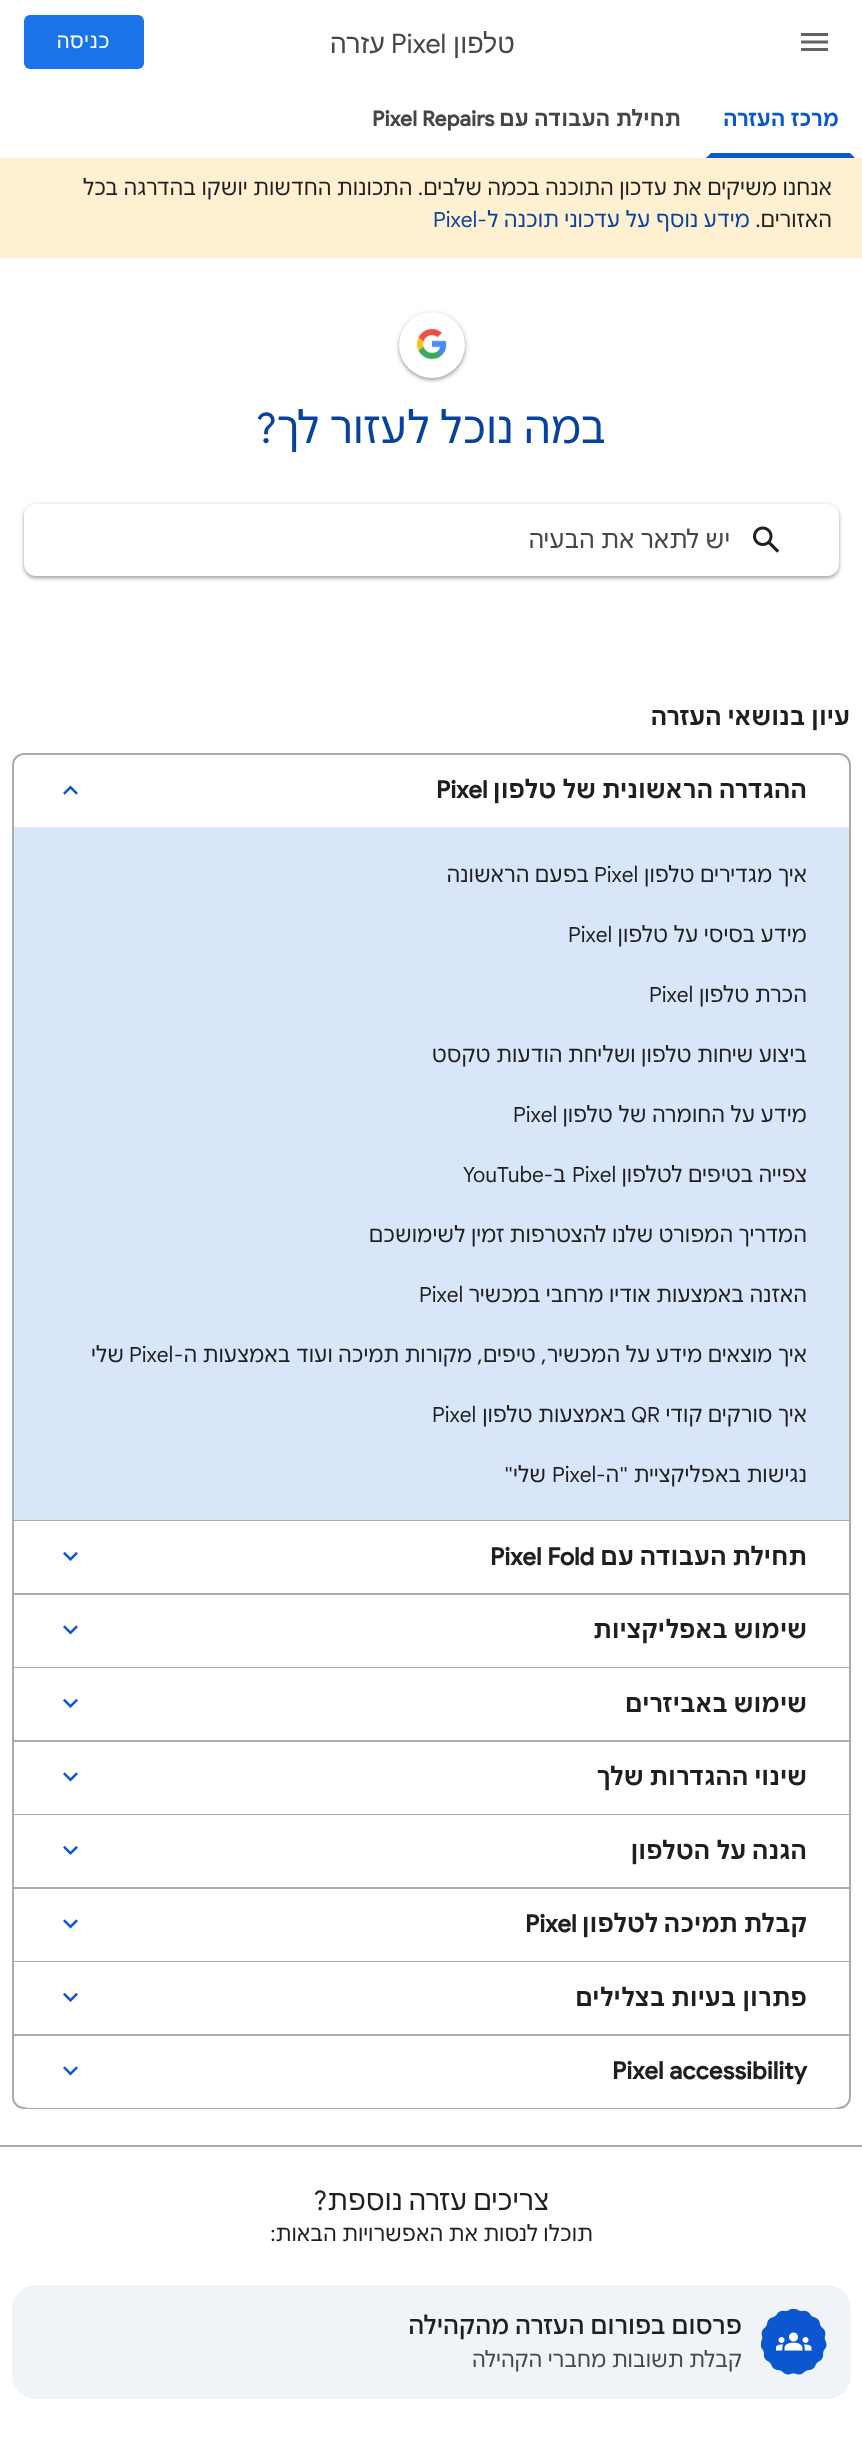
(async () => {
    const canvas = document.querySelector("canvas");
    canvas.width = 862;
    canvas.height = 2443;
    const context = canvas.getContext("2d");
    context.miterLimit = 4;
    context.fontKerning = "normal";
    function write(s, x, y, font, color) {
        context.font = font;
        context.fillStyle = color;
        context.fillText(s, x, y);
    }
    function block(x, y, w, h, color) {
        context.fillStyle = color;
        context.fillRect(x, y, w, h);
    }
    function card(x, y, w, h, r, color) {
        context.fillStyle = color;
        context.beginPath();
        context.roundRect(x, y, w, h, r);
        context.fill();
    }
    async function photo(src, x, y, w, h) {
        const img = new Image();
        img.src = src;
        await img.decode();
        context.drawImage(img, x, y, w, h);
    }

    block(0, 0, 862, 2443, "rgb(255, 255, 255)");
    await photo("media/1.png", 801, 33, 27, 18);
    context.direction = "rtl";
    write("טלפון", 515, 53, "27px Liberation Sans", "rgb(68, 71, 70)");
    context.direction = "ltr";
    write("Pixel", 391, 53, "27px Google Sans", "rgb(68, 71, 70)");
    context.direction = "rtl";
    write("עזרה", 385, 53, "27px Liberation Sans", "rgb(68, 71, 70)");
    card(24, 15, 120, 54, 6, "rgb(26, 115, 232)");
    context.letterSpacing = "0.5px";
    write("כניסה", 110, 48, "21px Liberation Sans", "rgb(255, 255, 255)");
    context.fillStyle = "rgb(11, 87, 208)";
    context.beginPath();
    context.moveTo(855, 158);
    context.lineTo(706, 158);
    context.lineTo(711, 153);
    context.lineTo(850, 153);
    context.closePath();
    context.fill();
    context.letterSpacing = "0px";
    write("מרכז העזרה", 839, 126, "bold 21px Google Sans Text", "rgb(11, 87, 208)");
    write("תחילת העבודה עם", 681, 126, "bold 21px Google Sans Text", "rgb(68, 71, 70)");
    context.direction = "ltr";
    write("Pixel Repairs", 372, 126, "bold 21px Google Sans", "rgb(68, 71, 70)");
    block(0, 158, 862, 100, "rgb(255, 240, 209)");
    context.direction = "rtl";
    write("אנחנו משיקים את עדכון התוכנה בכמה שלבים. התכונות החדשות יושקו בהדרגה בכל", 832, 195, "21px Google Sans Text", "rgb(31, 31, 31)");
    write("האזורים.", 832, 227, "21px Google Sans Text", "rgb(31, 31, 31)");
    write("מידע נוסף על עדכוני תוכנה ל-", 750, 227, "21px Google Sans Text", "rgb(8, 66, 160)");
    context.direction = "ltr";
    write("Pixel", 433, 227, "21px Google Sans Text", "rgb(8, 66, 160)");
    context.fillStyle = "rgba(48, 48, 48, 0.15)";
    context.filter = "blur(2px)";
    context.beginPath();
    context.roundRect(398, 312, 69, 69, 34.5);
    context.fill();
    context.filter = "none";
    context.fillStyle = "rgba(48, 48, 48, 0.3)";
    context.filter = "blur(1.5px)";
    context.beginPath();
    context.roundRect(399, 314, 66, 66, 33);
    context.fill();
    context.filter = "none";
    context.fillStyle = "rgb(255, 255, 255)";
    context.beginPath();
    context.arc(432, 345, 33, 0, Math.PI * 2);
    context.fill();
    await photo("media/2.png", 416, 328, 34, 38);
    context.wordSpacing = "-1px";
    context.direction = "rtl";
    write("במה נוכל לעזור לך", 606, 443, "42px Google Sans Text", "rgb(8, 66, 160)");
    context.wordSpacing = "0px";
    write("?", 277, 443, "42px Google Sans", "rgb(8, 66, 160)");
    context.fillStyle = "rgba(48, 48, 48, 0.15)";
    context.filter = "blur(2px)";
    context.beginPath();
    context.roundRect(23, 504, 817, 75, 14);
    context.fill();
    context.filter = "none";
    context.fillStyle = "rgba(48, 48, 48, 0.3)";
    context.filter = "blur(1.5px)";
    context.beginPath();
    context.roundRect(24, 506, 815, 72, 12);
    context.fill();
    context.filter = "none";
    card(24, 504, 815, 72, 12, "rgb(255, 255, 255)");
    await photo("media/3.png", 753, 526, 27, 27);
    write("יש לתאר את הבעיה", 730, 548, "24px Google Sans Text", "rgb(68, 71, 70)");
    context.wordSpacing = "-0.5px";
    write("עיון בנושאי העזרה", 850, 725, "bold 24px Google Sans Text", "rgb(31, 31, 31)");
    context.beginPath();
    context.roundRect(13, 754, 837, 1354, 11);
    context.strokeStyle = "rgb(169, 172, 170)";
    context.lineWidth = 2;
    context.stroke();
    context.fillStyle = "rgb(217, 229, 248)";
    context.beginPath();
    context.roundRect(14, 755, 835, 765, [15, 15, 0, 0]);
    context.fill();
    context.fillStyle = "rgb(255, 255, 255)";
    context.beginPath();
    context.roundRect(14, 755, 835, 72, [15, 15, 0, 0]);
    context.fill();
    write("ההגדרה הראשונית של טלפון", 807, 798, "bold 24px Google Sans Text", "rgb(31, 31, 31)");
    context.wordSpacing = "0px";
    context.direction = "ltr";
    write("Pixel", 436, 798, "bold 24px Google Sans", "rgb(31, 31, 31)");
    await photo("media/4.png", 63, 785, 15, 10);
    context.direction = "rtl";
    write("איך מגדירים טלפון", 807, 882, "21px Google Sans Text", "rgb(31, 31, 31)");
    context.direction = "ltr";
    write("Pixel", 594, 882, "21px Google Sans Text", "rgb(31, 31, 31)");
    context.direction = "rtl";
    write("בפעם הראשונה", 589, 882, "21px Google Sans Text", "rgb(31, 31, 31)");
    write("מידע בסיסי על טלפון", 807, 942, "21px Google Sans Text", "rgb(31, 31, 31)");
    context.direction = "ltr";
    write("Pixel", 568, 942, "21px Google Sans Text", "rgb(31, 31, 31)");
    context.direction = "rtl";
    write("הכרת טלפון", 807, 1002, "21px Google Sans Text", "rgb(31, 31, 31)");
    context.direction = "ltr";
    write("Pixel", 649, 1002, "21px Google Sans Text", "rgb(31, 31, 31)");
    context.direction = "rtl";
    write("ביצוע שיחות טלפון ושליחת הודעות טקסט", 807, 1062, "21px Google Sans Text", "rgb(31, 31, 31)");
    write("מידע על החומרה של טלפון", 807, 1122, "21px Google Sans Text", "rgb(31, 31, 31)");
    context.direction = "ltr";
    write("Pixel", 513, 1122, "21px Google Sans Text", "rgb(31, 31, 31)");
    context.direction = "rtl";
    write("צפייה בטיפים לטלפון", 807, 1182, "21px Google Sans Text", "rgb(31, 31, 31)");
    context.direction = "ltr";
    write("Pixel", 572, 1182, "21px Google Sans Text", "rgb(31, 31, 31)");
    context.direction = "rtl";
    write("ב-", 566, 1182, "21px Google Sans Text", "rgb(31, 31, 31)");
    context.direction = "ltr";
    write("YouTube", 463, 1182, "21px Google Sans Text", "rgb(31, 31, 31)");
    context.direction = "rtl";
    write("המדריך המפורט שלנו להצטרפות זמין לשימושכם", 807, 1242, "21px Google Sans Text", "rgb(31, 31, 31)");
    write("האזנה באמצעות אודיו מרחבי במכשיר", 807, 1302, "21px Google Sans Text", "rgb(31, 31, 31)");
    context.direction = "ltr";
    write("Pixel", 419, 1302, "21px Google Sans Text", "rgb(31, 31, 31)");
    context.direction = "rtl";
    write("איך מוצאים מידע על המכשיר, טיפים, מקורות תמיכה ועוד באמצעות ה-", 807, 1362, "21px Google Sans Text", "rgb(31, 31, 31)");
    context.direction = "ltr";
    write("Pixel", 129, 1362, "21px Google Sans Text", "rgb(31, 31, 31)");
    context.direction = "rtl";
    write("שלי", 124, 1362, "21px Google Sans Text", "rgb(31, 31, 31)");
    write("איך סורקים קודי", 807, 1422, "21px Google Sans Text", "rgb(31, 31, 31)");
    context.direction = "ltr";
    write("QR", 631, 1422, "21px Google Sans Text", "rgb(31, 31, 31)");
    context.direction = "rtl";
    write("באמצעות טלפון", 626, 1422, "21px Google Sans Text", "rgb(31, 31, 31)");
    context.direction = "ltr";
    write("Pixel", 432, 1422, "21px Google Sans Text", "rgb(31, 31, 31)");
    context.direction = "rtl";
    write("נגישות באפליקציית \"ה-", 807, 1482, "21px Google Sans Text", "rgb(31, 31, 31)");
    context.direction = "ltr";
    write("Pixel", 552, 1482, "21px Google Sans Text", "rgb(31, 31, 31)");
    context.direction = "rtl";
    write("שלי\"", 546, 1482, "21px Google Sans Text", "rgb(31, 31, 31)");
    block(14, 1520, 835, 1, "rgb(169, 172, 170)");
    context.wordSpacing = "-0.5px";
    write("תחילת העבודה עם", 807, 1565, "bold 24px Google Sans Text", "rgb(31, 31, 31)");
    context.wordSpacing = "0px";
    context.direction = "ltr";
    write("Pixel Fold", 490, 1565, "bold 24px Google Sans", "rgb(31, 31, 31)");
    await photo("media/5.png", 63, 1551, 15, 10);
    block(14, 1593, 835, 2, "rgb(169, 172, 170)");
    context.wordSpacing = "-0.5px";
    context.direction = "rtl";
    write("שימוש באפליקציות", 807, 1638, "bold 24px Google Sans Text", "rgb(31, 31, 31)");
    await photo("media/6.png", 63, 1625, 15, 10);
    block(14, 1667, 835, 1, "rgb(169, 172, 170)");
    write("שימוש באביזרים", 807, 1712, "bold 24px Google Sans Text", "rgb(31, 31, 31)");
    await photo("media/5.png", 63, 1698, 15, 10);
    block(14, 1740, 835, 2, "rgb(169, 172, 170)");
    write("שינוי ההגדרות שלך", 807, 1785, "bold 24px Google Sans Text", "rgb(31, 31, 31)");
    await photo("media/6.png", 63, 1772, 15, 10);
    block(14, 1814, 835, 1, "rgb(169, 172, 170)");
    write("הגנה על הטלפון", 807, 1859, "bold 24px Google Sans Text", "rgb(31, 31, 31)");
    await photo("media/5.png", 63, 1845, 15, 10);
    block(14, 1887, 835, 2, "rgb(169, 172, 170)");
    write("קבלת תמיכה לטלפון", 807, 1932, "bold 24px Google Sans Text", "rgb(31, 31, 31)");
    context.wordSpacing = "0px";
    context.direction = "ltr";
    write("Pixel", 525, 1932, "bold 24px Google Sans", "rgb(31, 31, 31)");
    await photo("media/6.png", 63, 1919, 15, 10);
    block(14, 1961, 835, 1, "rgb(169, 172, 170)");
    context.wordSpacing = "-0.5px";
    context.direction = "rtl";
    write("פתרון בעיות בצלילים", 807, 2006, "bold 24px Google Sans Text", "rgb(31, 31, 31)");
    await photo("media/5.png", 63, 1992, 15, 10);
    block(14, 2034, 835, 2, "rgb(169, 172, 170)");
    context.fillStyle = "rgb(255, 255, 255)";
    context.beginPath();
    context.roundRect(14, 2036, 835, 72, [0, 0, 15, 15]);
    context.fill();
    context.wordSpacing = "0px";
    context.direction = "ltr";
    write("Pixel accessibility", 612, 2079, "bold 24px Google Sans", "rgb(31, 31, 31)");
    await photo("media/6.png", 63, 2066, 15, 10);
    block(0, 2145, 862, 2, "rgb(169, 172, 170)");
    context.wordSpacing = "-1px";
    context.direction = "rtl";
    write("צריכים עזרה נוספת", 549, 2210, "27px Google Sans Text", "rgb(31, 31, 31)");
    context.wordSpacing = "0px";
    write("?", 327, 2210, "27px Google Sans", "rgb(31, 31, 31)");
    write("תוכלו לנסות את האפשרויות הבאות:", 593, 2241, "21px Google Sans Text", "rgb(31, 31, 31)");
    card(12, 2285, 839, 114, 24, "rgb(240, 244, 249)");
    await photo("media/7.png", 761, 2309, 66, 66);
    await photo("media/8.png", 776, 2332, 36, 19);
    context.wordSpacing = "-0.5px";
    write("פרסום בפורום העזרה מהקהילה", 742, 2334, "500 24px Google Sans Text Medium", "rgb(31, 31, 31)");
    context.wordSpacing = "0px";
    write("קבלת תשובות מחברי הקהילה", 742, 2367, "21px Google Sans Text", "rgb(68, 71, 70)");
})();
